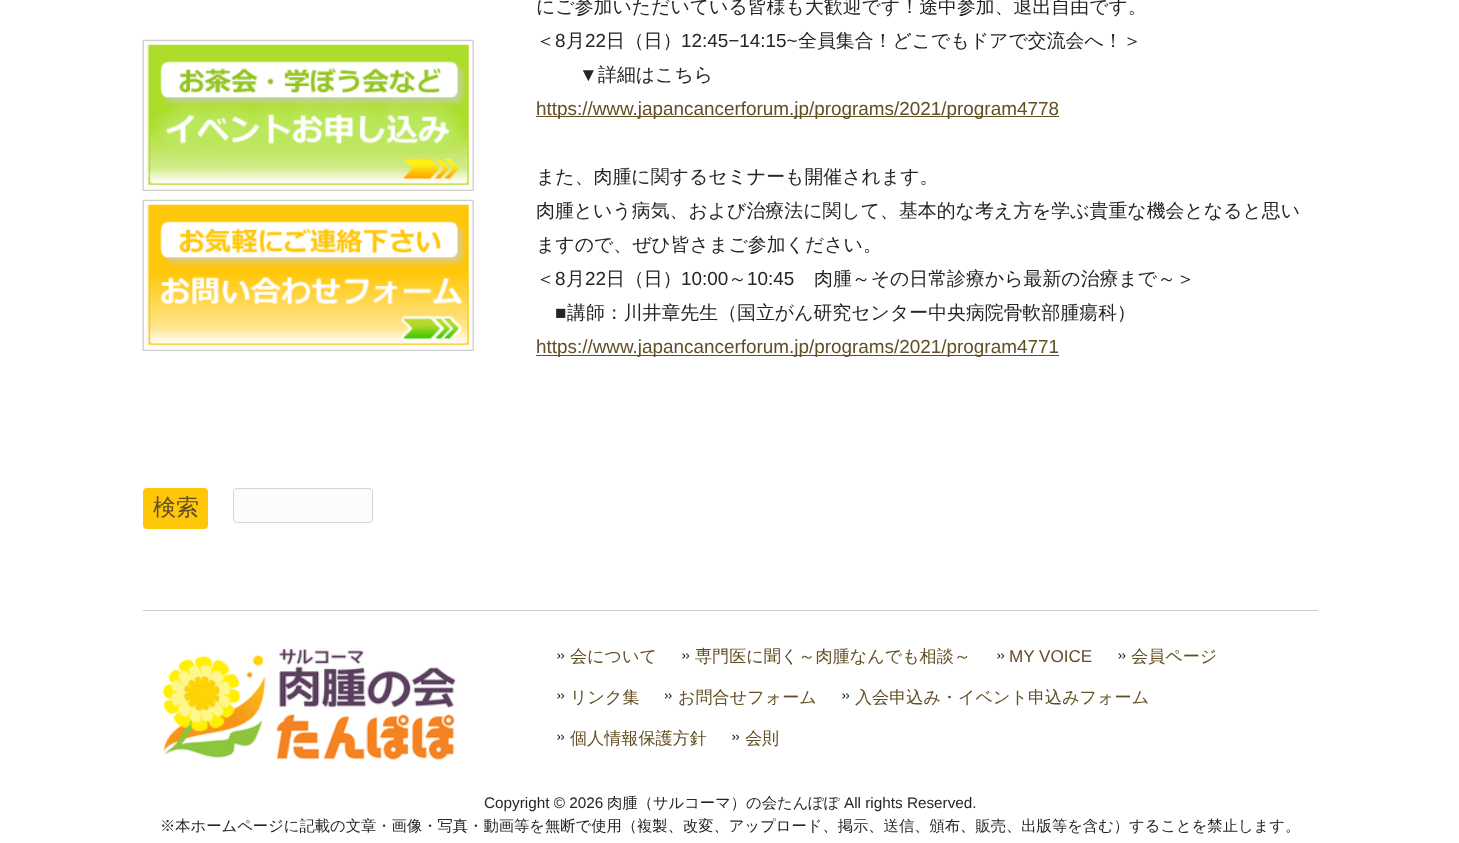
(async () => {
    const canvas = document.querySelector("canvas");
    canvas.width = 1459;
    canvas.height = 843;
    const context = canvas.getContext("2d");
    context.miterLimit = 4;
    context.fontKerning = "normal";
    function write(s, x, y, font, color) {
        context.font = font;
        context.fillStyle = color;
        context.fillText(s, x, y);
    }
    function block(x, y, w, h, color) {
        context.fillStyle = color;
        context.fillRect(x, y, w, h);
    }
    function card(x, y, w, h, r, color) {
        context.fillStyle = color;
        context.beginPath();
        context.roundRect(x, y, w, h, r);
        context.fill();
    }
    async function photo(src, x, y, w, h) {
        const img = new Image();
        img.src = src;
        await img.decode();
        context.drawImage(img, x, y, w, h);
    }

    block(0, 0, 1459, 843, "rgb(255, 255, 255)");
    write("にご参加いただいている皆様も大歓迎です！途中参加、退出自由です。", 536, 13, "500 18.9px WenQuanYi Zen Hei", "rgb(37, 37, 37)");
    write("＜", 536, 47, "500 18.9px WenQuanYi Zen Hei", "rgb(37, 37, 37)");
    write("8", 555, 47, "18.9px Liberation Sans", "rgb(37, 37, 37)");
    write("月", 566, 47, "500 18.9px WenQuanYi Zen Hei", "rgb(37, 37, 37)");
    write("22", 585, 47, "18.9px Liberation Sans", "rgb(37, 37, 37)");
    write("日（日）", 606, 47, "500 18.9px WenQuanYi Zen Hei", "rgb(37, 37, 37)");
    write("12:45−14:15~", 681, 47, "18.9px Liberation Sans", "rgb(37, 37, 37)");
    write("全員集合！どこでもドアで交流会へ！＞", 798, 47, "500 18.9px WenQuanYi Zen Hei", "rgb(37, 37, 37)");
    write("▼", 579, 81, "18.9px Liberation Sans", "rgb(37, 37, 37)");
    write("詳細はこちら", 598, 81, "500 18.9px WenQuanYi Zen Hei", "rgb(37, 37, 37)");
    block(536, 116, 523, 1, "rgb(98, 78, 36)");
    write("https://www.japancancerforum.jp/programs/2021/program4778", 536, 115, "18.9px Liberation Sans", "rgb(98, 78, 36)");
    write("また、肉腫に関するセミナーも開催されます。", 536, 183, "500 18.9px WenQuanYi Zen Hei", "rgb(37, 37, 37)");
    write("肉腫という病気、および治療法に関して、基本的な考え方を学ぶ貴重な機会となると思い", 536, 217, "500 18.9px WenQuanYi Zen Hei", "rgb(37, 37, 37)");
    write("ますので、ぜひ皆さまご参加ください。", 536, 251, "500 18.9px WenQuanYi Zen Hei", "rgb(37, 37, 37)");
    write("＜", 536, 285, "500 18.9px WenQuanYi Zen Hei", "rgb(37, 37, 37)");
    write("8", 555, 285, "18.9px Liberation Sans", "rgb(37, 37, 37)");
    write("月", 566, 285, "500 18.9px WenQuanYi Zen Hei", "rgb(37, 37, 37)");
    write("22", 585, 285, "18.9px Liberation Sans", "rgb(37, 37, 37)");
    write("日（日）", 606, 285, "500 18.9px WenQuanYi Zen Hei", "rgb(37, 37, 37)");
    write("10:00", 681, 285, "18.9px Liberation Sans", "rgb(37, 37, 37)");
    write("～", 728, 285, "500 18.9px WenQuanYi Zen Hei", "rgb(37, 37, 37)");
    write("10:45", 747, 285, "18.9px Liberation Sans", "rgb(37, 37, 37)");
    write("肉腫～その日常診療から最新の治療まで～＞", 814, 285, "500 18.9px WenQuanYi Zen Hei", "rgb(37, 37, 37)");
    write("■", 555, 319, "18.9px Liberation Sans", "rgb(37, 37, 37)");
    write("講師：川井章先生（国立がん研究センター中央病院骨軟部腫瘍科）", 567, 319, "500 18.9px WenQuanYi Zen Hei", "rgb(37, 37, 37)");
    block(536, 355, 523, 1, "rgb(98, 78, 36)");
    write("https://www.japancancerforum.jp/programs/2021/program4771", 536, 353, "18.9px Liberation Sans", "rgb(98, 78, 36)");
    await photo("media/1.png", 142, 39, 332, 152);
    await photo("media/2.png", 142, 199, 332, 152);
    card(143, 488, 65, 41, 4, "rgb(255, 199, 9)");
    write("検索", 153, 515, "500 23px WenQuanYi Zen Hei", "rgb(98, 78, 36)");
    context.fillStyle = "rgb(252, 252, 252)";
    context.beginPath();
    context.roundRect(233.5, 488.5, 139, 34, 3.5);
    context.fill();
    context.strokeStyle = "rgb(212, 212, 215)";
    context.stroke();
    block(143, 610, 1175, 1, "rgb(204, 204, 204)");
    await photo("media/3.png", 162, 648, 296, 114);
    await photo("media/4.png", 557, 653, 7, 6);
    write("会について", 570, 662, "500 17.1px WenQuanYi Zen Hei", "rgb(98, 78, 36)");
    await photo("media/4.png", 682, 653, 7, 6);
    write("専門医に聞く～肉腫なんでも相談～", 695, 662, "500 17.1px WenQuanYi Zen Hei", "rgb(98, 78, 36)");
    await photo("media/4.png", 997, 653, 7, 6);
    write("MY VOICE", 1009, 662, "17.1px Liberation Sans", "rgb(98, 78, 36)");
    await photo("media/5.png", 1118, 653, 8, 6);
    write("会員ページ", 1131, 662, "500 17.1px WenQuanYi Zen Hei", "rgb(98, 78, 36)");
    await photo("media/4.png", 557, 693, 7, 6);
    write("リンク集", 570, 703, "500 17.1px WenQuanYi Zen Hei", "rgb(98, 78, 36)");
    await photo("media/6.png", 664, 693, 8, 6);
    write("お問合せフォーム", 678, 703, "500 17.1px WenQuanYi Zen Hei", "rgb(98, 78, 36)");
    await photo("media/4.png", 842, 693, 7, 6);
    write("入会申込み・イベント申込みフォーム", 855, 703, "500 17.1px WenQuanYi Zen Hei", "rgb(98, 78, 36)");
    await photo("media/7.png", 557, 734, 7, 6);
    write("個人情報保護方針", 570, 744, "500 17.1px WenQuanYi Zen Hei", "rgb(98, 78, 36)");
    await photo("media/7.png", 732, 734, 7, 6);
    write("会則", 745, 744, "500 17.1px WenQuanYi Zen Hei", "rgb(98, 78, 36)");
    write("Copyright © 2026", 484, 808, "15.3px Liberation Sans", "rgb(37, 37, 37)");
    write("肉腫（サルコーマ）の会たんぽぽ", 607, 808, "500 15.3px WenQuanYi Zen Hei", "rgb(37, 37, 37)");
    write("All rights Reserved.", 844, 808, "15.3px Liberation Sans", "rgb(37, 37, 37)");
    write("※本ホームページに記載の文章・画像・写真・動画等を無断で使用（複製、改変、アップロード、掲示、送信、頒布、販売、出版等を含む）することを禁止します。", 160, 831, "500 15.3px WenQuanYi Zen Hei", "rgb(37, 37, 37)");
})();
